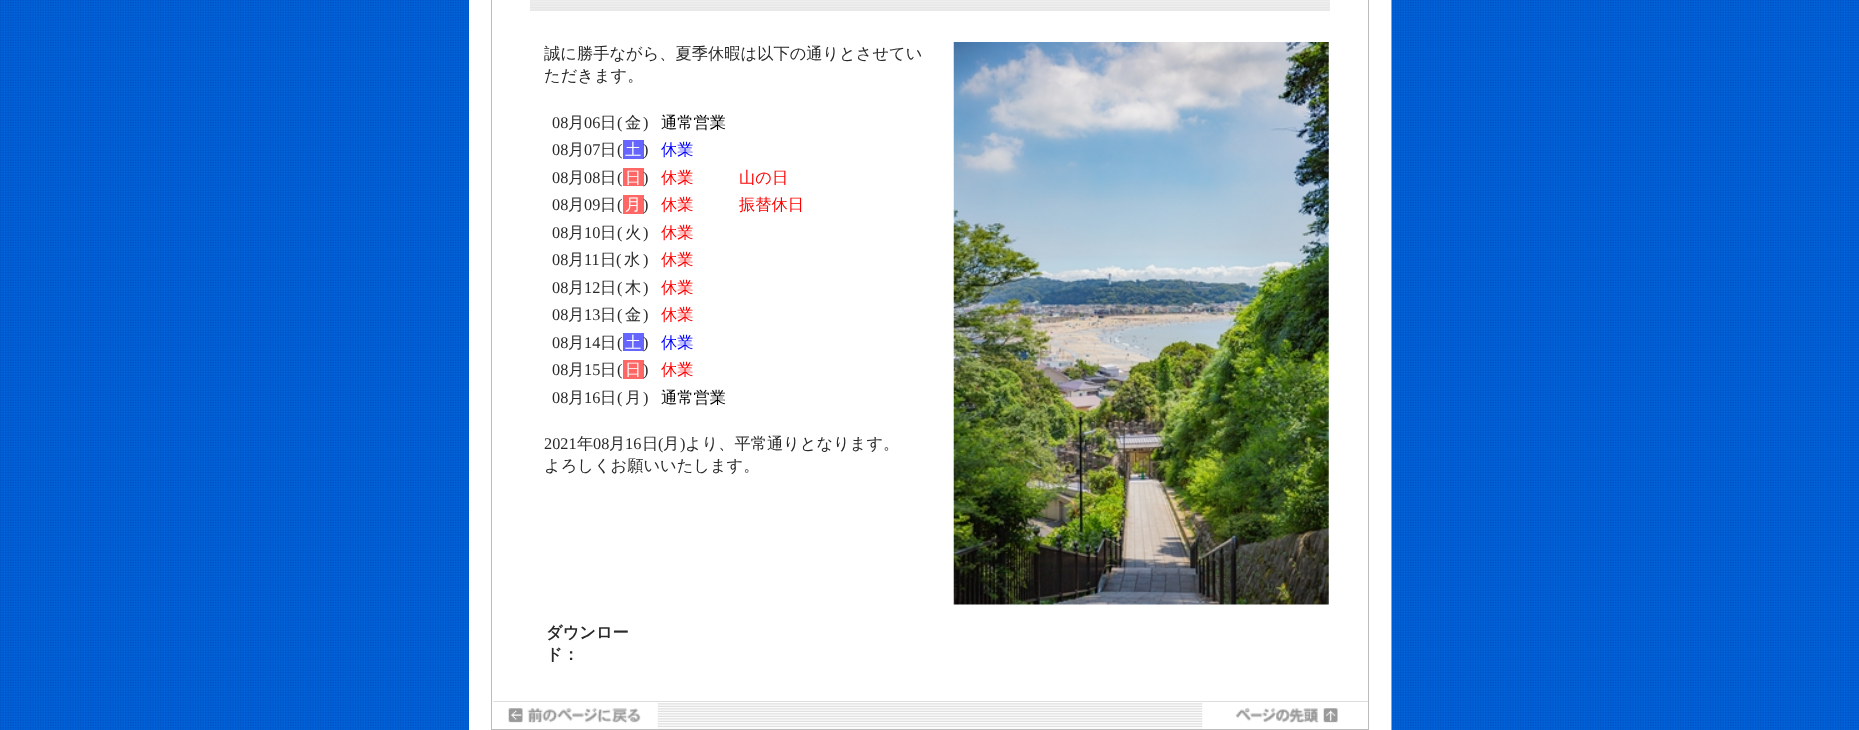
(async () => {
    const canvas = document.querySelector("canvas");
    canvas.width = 1859;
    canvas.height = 730;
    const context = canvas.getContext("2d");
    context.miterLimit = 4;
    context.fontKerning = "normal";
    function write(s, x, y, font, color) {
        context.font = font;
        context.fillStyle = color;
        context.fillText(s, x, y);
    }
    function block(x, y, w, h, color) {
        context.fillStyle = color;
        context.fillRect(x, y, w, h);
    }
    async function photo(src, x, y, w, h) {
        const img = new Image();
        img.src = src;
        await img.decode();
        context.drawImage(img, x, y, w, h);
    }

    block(0, 0, 1859, 730, "rgb(255, 255, 255)");
    await photo("media/1.png", 0, 0, 1859, 730);
    block(469, 0, 922, 730, "rgb(255, 255, 255)");
    block(491, 0, 1, 729, "rgb(187, 187, 187)");
    await photo("media/2.png", 530, 0, 800, 11);
    write("誠に勝手ながら、夏季休暇は以下の通りとさせてい", 544, 59, "500 16.25px WenQuanYi Zen Hei", "rgb(41, 41, 41)");
    write("ただきます。", 544, 81, "500 16.25px WenQuanYi Zen Hei", "rgb(41, 41, 41)");
    write("08", 552, 128, "16.25px Liberation Serif", "rgb(41, 41, 41)");
    write("月", 568, 128, "500 16.25px WenQuanYi Zen Hei", "rgb(41, 41, 41)");
    write("06", 584, 128, "16.25px Liberation Serif", "rgb(41, 41, 41)");
    write("日", 600, 128, "500 16.25px WenQuanYi Zen Hei", "rgb(41, 41, 41)");
    write("(", 617, 128, "16.25px Liberation Serif", "rgb(41, 41, 41)");
    write("金", 625, 128, "500 16.25px WenQuanYi Zen Hei", "rgb(41, 41, 41)");
    write(")", 643, 128, "16.25px Liberation Serif", "rgb(41, 41, 41)");
    write("通常営業", 661, 128, "500 16.25px WenQuanYi Zen Hei", "rgb(0, 0, 0)");
    write("08", 552, 155, "16.25px Liberation Serif", "rgb(41, 41, 41)");
    write("月", 568, 155, "500 16.25px WenQuanYi Zen Hei", "rgb(41, 41, 41)");
    write("07", 584, 155, "16.25px Liberation Serif", "rgb(41, 41, 41)");
    write("日", 600, 155, "500 16.25px WenQuanYi Zen Hei", "rgb(41, 41, 41)");
    write("(", 617, 155, "16.25px Liberation Serif", "rgb(41, 41, 41)");
    block(623, 140, 21, 19, "rgb(102, 102, 255)");
    write("土", 625, 155, "500 16.25px WenQuanYi Zen Hei", "rgb(255, 255, 255)");
    write(")", 643, 155, "16.25px Liberation Serif", "rgb(41, 41, 41)");
    write("休業", 661, 155, "500 16.25px WenQuanYi Zen Hei", "rgb(0, 0, 255)");
    write("08", 552, 183, "16.25px Liberation Serif", "rgb(41, 41, 41)");
    write("月", 568, 183, "500 16.25px WenQuanYi Zen Hei", "rgb(41, 41, 41)");
    write("08", 584, 183, "16.25px Liberation Serif", "rgb(41, 41, 41)");
    write("日", 600, 183, "500 16.25px WenQuanYi Zen Hei", "rgb(41, 41, 41)");
    write("(", 617, 183, "16.25px Liberation Serif", "rgb(41, 41, 41)");
    block(623, 168, 21, 18, "rgb(255, 102, 102)");
    write("日", 625, 183, "500 16.25px WenQuanYi Zen Hei", "rgb(255, 255, 255)");
    write(")", 643, 183, "16.25px Liberation Serif", "rgb(41, 41, 41)");
    write("休業", 661, 183, "500 16.25px WenQuanYi Zen Hei", "rgb(255, 0, 0)");
    write("山の日", 739, 183, "500 16.25px WenQuanYi Zen Hei", "rgb(255, 0, 0)");
    write("08", 552, 210, "16.25px Liberation Serif", "rgb(41, 41, 41)");
    write("月", 568, 210, "500 16.25px WenQuanYi Zen Hei", "rgb(41, 41, 41)");
    write("09", 584, 210, "16.25px Liberation Serif", "rgb(41, 41, 41)");
    write("日", 600, 210, "500 16.25px WenQuanYi Zen Hei", "rgb(41, 41, 41)");
    write("(", 617, 210, "16.25px Liberation Serif", "rgb(41, 41, 41)");
    block(623, 195, 21, 19, "rgb(255, 102, 102)");
    write("月", 625, 210, "500 16.25px WenQuanYi Zen Hei", "rgb(255, 255, 255)");
    write(")", 643, 210, "16.25px Liberation Serif", "rgb(41, 41, 41)");
    write("休業", 661, 210, "500 16.25px WenQuanYi Zen Hei", "rgb(255, 0, 0)");
    write("振替休日", 739, 210, "500 16.25px WenQuanYi Zen Hei", "rgb(255, 0, 0)");
    write("08", 552, 238, "16.25px Liberation Serif", "rgb(41, 41, 41)");
    write("月", 568, 238, "500 16.25px WenQuanYi Zen Hei", "rgb(41, 41, 41)");
    write("10", 584, 238, "16.25px Liberation Serif", "rgb(41, 41, 41)");
    write("日", 600, 238, "500 16.25px WenQuanYi Zen Hei", "rgb(41, 41, 41)");
    write("(", 617, 238, "16.25px Liberation Serif", "rgb(41, 41, 41)");
    write("火", 625, 238, "500 16.25px WenQuanYi Zen Hei", "rgb(41, 41, 41)");
    write(")", 643, 238, "16.25px Liberation Serif", "rgb(41, 41, 41)");
    write("休業", 661, 238, "500 16.25px WenQuanYi Zen Hei", "rgb(255, 0, 0)");
    write("08", 552, 265, "16.25px Liberation Serif", "rgb(41, 41, 41)");
    write("月", 568, 265, "500 16.25px WenQuanYi Zen Hei", "rgb(41, 41, 41)");
    write("11", 584, 265, "16.25px Liberation Serif", "rgb(41, 41, 41)");
    write("日", 600, 265, "500 16.25px WenQuanYi Zen Hei", "rgb(41, 41, 41)");
    write("(", 616, 265, "16.25px Liberation Serif", "rgb(41, 41, 41)");
    write("水", 624, 265, "500 16.25px WenQuanYi Zen Hei", "rgb(41, 41, 41)");
    write(")", 643, 265, "16.25px Liberation Serif", "rgb(41, 41, 41)");
    write("休業", 661, 265, "500 16.25px WenQuanYi Zen Hei", "rgb(255, 0, 0)");
    write("08", 552, 293, "16.25px Liberation Serif", "rgb(41, 41, 41)");
    write("月", 568, 293, "500 16.25px WenQuanYi Zen Hei", "rgb(41, 41, 41)");
    write("12", 584, 293, "16.25px Liberation Serif", "rgb(41, 41, 41)");
    write("日", 600, 293, "500 16.25px WenQuanYi Zen Hei", "rgb(41, 41, 41)");
    write("(", 617, 293, "16.25px Liberation Serif", "rgb(41, 41, 41)");
    write("木", 625, 293, "500 16.25px WenQuanYi Zen Hei", "rgb(41, 41, 41)");
    write(")", 643, 293, "16.25px Liberation Serif", "rgb(41, 41, 41)");
    write("休業", 661, 293, "500 16.25px WenQuanYi Zen Hei", "rgb(255, 0, 0)");
    write("08", 552, 320, "16.25px Liberation Serif", "rgb(41, 41, 41)");
    write("月", 568, 320, "500 16.25px WenQuanYi Zen Hei", "rgb(41, 41, 41)");
    write("13", 584, 320, "16.25px Liberation Serif", "rgb(41, 41, 41)");
    write("日", 600, 320, "500 16.25px WenQuanYi Zen Hei", "rgb(41, 41, 41)");
    write("(", 617, 320, "16.25px Liberation Serif", "rgb(41, 41, 41)");
    write("金", 625, 320, "500 16.25px WenQuanYi Zen Hei", "rgb(41, 41, 41)");
    write(")", 643, 320, "16.25px Liberation Serif", "rgb(41, 41, 41)");
    write("休業", 661, 320, "500 16.25px WenQuanYi Zen Hei", "rgb(255, 0, 0)");
    write("08", 552, 348, "16.25px Liberation Serif", "rgb(41, 41, 41)");
    write("月", 568, 348, "500 16.25px WenQuanYi Zen Hei", "rgb(41, 41, 41)");
    write("14", 584, 348, "16.25px Liberation Serif", "rgb(41, 41, 41)");
    write("日", 600, 348, "500 16.25px WenQuanYi Zen Hei", "rgb(41, 41, 41)");
    write("(", 617, 348, "16.25px Liberation Serif", "rgb(41, 41, 41)");
    block(623, 333, 21, 18, "rgb(102, 102, 255)");
    write("土", 625, 348, "500 16.25px WenQuanYi Zen Hei", "rgb(255, 255, 255)");
    write(")", 643, 348, "16.25px Liberation Serif", "rgb(41, 41, 41)");
    write("休業", 661, 348, "500 16.25px WenQuanYi Zen Hei", "rgb(0, 0, 255)");
    write("08", 552, 375, "16.25px Liberation Serif", "rgb(41, 41, 41)");
    write("月", 568, 375, "500 16.25px WenQuanYi Zen Hei", "rgb(41, 41, 41)");
    write("15", 584, 375, "16.25px Liberation Serif", "rgb(41, 41, 41)");
    write("日", 600, 375, "500 16.25px WenQuanYi Zen Hei", "rgb(41, 41, 41)");
    write("(", 617, 375, "16.25px Liberation Serif", "rgb(41, 41, 41)");
    block(623, 360, 21, 19, "rgb(255, 102, 102)");
    write("日", 625, 375, "500 16.25px WenQuanYi Zen Hei", "rgb(255, 255, 255)");
    write(")", 643, 375, "16.25px Liberation Serif", "rgb(41, 41, 41)");
    write("休業", 661, 375, "500 16.25px WenQuanYi Zen Hei", "rgb(255, 0, 0)");
    write("08", 552, 403, "16.25px Liberation Serif", "rgb(41, 41, 41)");
    write("月", 568, 403, "500 16.25px WenQuanYi Zen Hei", "rgb(41, 41, 41)");
    write("16", 584, 403, "16.25px Liberation Serif", "rgb(41, 41, 41)");
    write("日", 600, 403, "500 16.25px WenQuanYi Zen Hei", "rgb(41, 41, 41)");
    write("(", 617, 403, "16.25px Liberation Serif", "rgb(41, 41, 41)");
    write("月", 625, 403, "500 16.25px WenQuanYi Zen Hei", "rgb(41, 41, 41)");
    write(")", 643, 403, "16.25px Liberation Serif", "rgb(41, 41, 41)");
    write("通常営業", 661, 403, "500 16.25px WenQuanYi Zen Hei", "rgb(0, 0, 0)");
    write("2021", 544, 449, "16.25px Liberation Serif", "rgb(41, 41, 41)");
    write("年", 577, 449, "500 16.25px WenQuanYi Zen Hei", "rgb(41, 41, 41)");
    write("08", 593, 449, "16.25px Liberation Serif", "rgb(41, 41, 41)");
    write("月", 609, 449, "500 16.25px WenQuanYi Zen Hei", "rgb(41, 41, 41)");
    write("16", 625, 449, "16.25px Liberation Serif", "rgb(41, 41, 41)");
    write("日", 642, 449, "500 16.25px WenQuanYi Zen Hei", "rgb(41, 41, 41)");
    write("(", 658, 449, "16.25px Liberation Serif", "rgb(41, 41, 41)");
    write("月", 663, 449, "500 16.25px WenQuanYi Zen Hei", "rgb(41, 41, 41)");
    write(")", 680, 449, "16.25px Liberation Serif", "rgb(41, 41, 41)");
    write("より、平常通りとなります。", 685, 449, "500 16.25px WenQuanYi Zen Hei", "rgb(41, 41, 41)");
    write("よろしくお願いいたします。", 544, 471, "500 16.25px WenQuanYi Zen Hei", "rgb(41, 41, 41)");
    await photo("media/3.png", 953, 42, 376, 563);
    write("ダウンロー", 546, 638, "bold 16.25px WenQuanYi Zen Hei", "rgb(41, 41, 41)");
    write("ド：", 546, 660, "bold 16.25px WenQuanYi Zen Hei", "rgb(41, 41, 41)");
    block(493, 701, 875, 1, "rgb(221, 221, 221)");
    await photo("media/5.png", 657, 703, 546, 26);
    await photo("media/4.png", 508, 703, 150, 24);
    await photo("media/6.png", 1202, 703, 136, 24);
    block(1368, 0, 1, 729, "rgb(187, 187, 187)");
    block(491, 729, 878, 1, "rgb(187, 187, 187)");
    block(1391, 0, 1, 730, "rgb(161, 161, 161)");
})();
